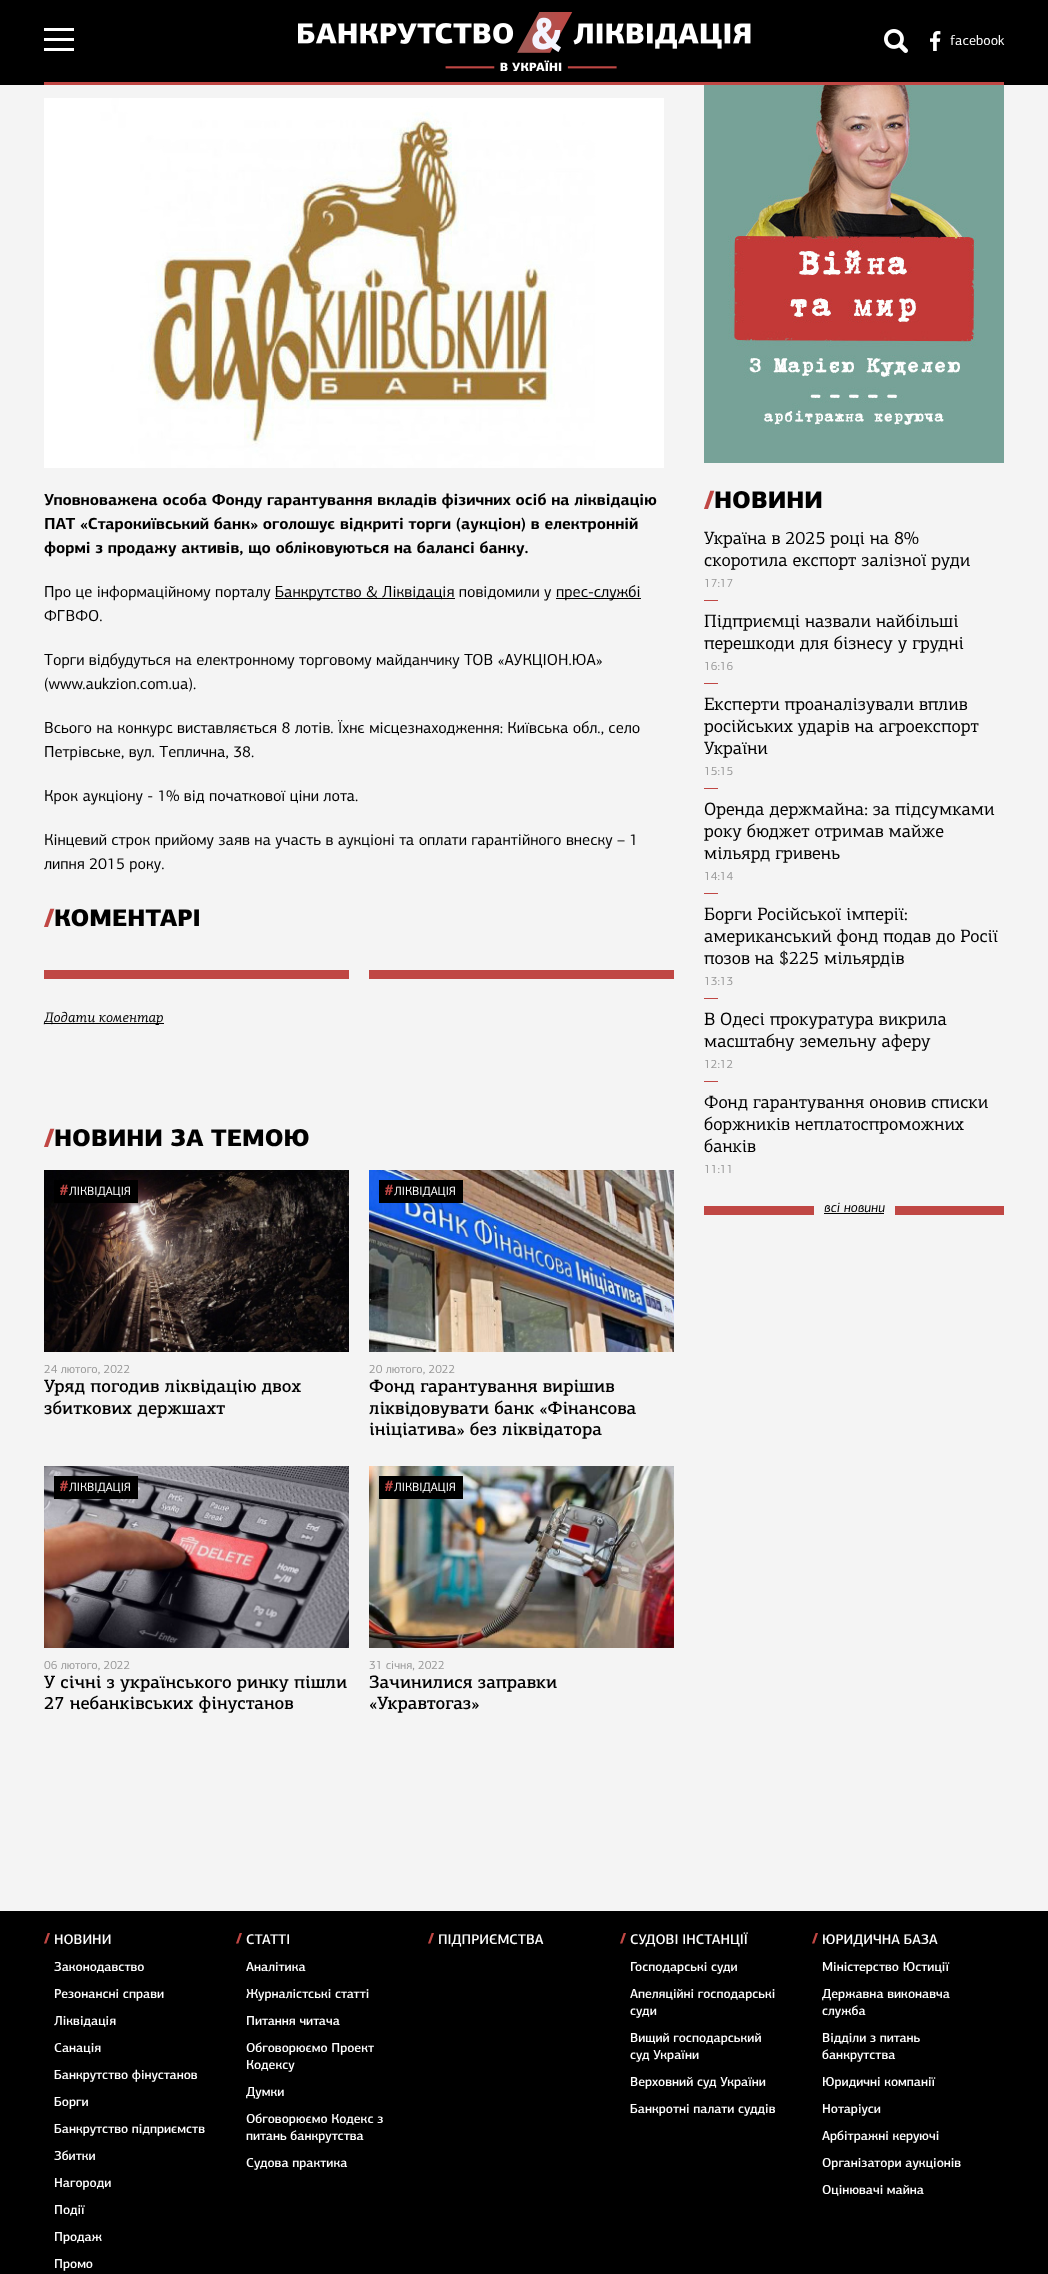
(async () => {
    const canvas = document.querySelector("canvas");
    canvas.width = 1048;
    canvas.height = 2274;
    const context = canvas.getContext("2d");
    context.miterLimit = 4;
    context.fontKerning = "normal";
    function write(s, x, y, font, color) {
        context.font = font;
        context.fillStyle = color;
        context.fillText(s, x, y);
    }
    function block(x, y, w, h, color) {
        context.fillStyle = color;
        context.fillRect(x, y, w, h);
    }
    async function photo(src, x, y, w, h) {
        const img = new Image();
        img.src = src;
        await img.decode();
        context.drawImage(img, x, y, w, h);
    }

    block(0, 0, 1048, 2274, "rgb(244, 244, 244)");
    block(0, 0, 1048, 85, "rgb(0, 0, 0)");
    block(44, 82, 960, 3, "rgb(192, 71, 68)");
    block(44, 28, 30, 3, "rgb(255, 255, 255)");
    block(44, 38, 30, 3, "rgb(255, 255, 255)");
    block(44, 48, 30, 3, "rgb(255, 255, 255)");
    await photo("media/1.png", 298, 12, 453, 59);
    await photo("media/2.png", 884, 29, 24, 24);
    await photo("media/3.png", 930, 31, 11, 20);
    write("facebook", 950, 45, "14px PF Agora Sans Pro", "rgb(255, 255, 255)");
    await photo("media/4.png", 44, 98, 620, 370);
    write("Уповноважена особа Фонду гарантування вкладів фізичних осіб на ліквідацію", 44, 505, "bold 16px PF Agora Sans Pro", "rgb(0, 0, 0)");
    write("ПАТ «Старокиївський банк» оголошує відкриті торги (аукціон) в електронній", 44, 529, "bold 16px PF Agora Sans Pro", "rgb(0, 0, 0)");
    write("формі з продажу активів, що обліковуються на балансі банку.", 44, 553, "bold 16px PF Agora Sans Pro", "rgb(0, 0, 0)");
    write("Про це інформаційному порталу", 44, 597, "16px PF Agora Sans Pro", "rgb(0, 0, 0)");
    block(275, 598, 180, 1, "rgb(0, 0, 0)");
    write("Банкрутство & Ліквідація повідомили у", 275, 597, "16px PF Agora Sans Pro", "rgb(0, 0, 0)");
    block(556, 598, 85, 1, "rgb(0, 0, 0)");
    write("прес-службі", 556, 597, "16px PF Agora Sans Pro", "rgb(0, 0, 0)");
    write("ФГВФО.", 44, 621, "16px PF Agora Sans Pro", "rgb(0, 0, 0)");
    write("Торги відбудуться на електронному торговому майданчику ТОВ «АУКЦІОН.ЮА»", 44, 665, "16px PF Agora Sans Pro", "rgb(0, 0, 0)");
    write("(www.aukzion.com.ua).", 44, 689, "16px PF Agora Sans Pro", "rgb(0, 0, 0)");
    write("Всього на конкурс виставляється 8 лотів. Їхнє місцезнаходження: Київська обл., село", 44, 733, "16px PF Agora Sans Pro", "rgb(0, 0, 0)");
    write("Петрівське, вул. Теплична, 38.", 44, 757, "16px PF Agora Sans Pro", "rgb(0, 0, 0)");
    write("Крок аукціону - 1% від початкової ціни лота.", 44, 801, "16px PF Agora Sans Pro", "rgb(0, 0, 0)");
    write("Кінцевий строк прийому заяв на участь в аукціоні та оплати гарантійного внеску – 1", 44, 845, "16px PF Agora Sans Pro", "rgb(0, 0, 0)");
    write("липня 2015 року.", 44, 869, "16px PF Agora Sans Pro", "rgb(0, 0, 0)");
    write("/", 44, 926, "800 24px PF Agora Sans Pro", "rgb(192, 71, 68)");
    write("КОМЕНТАРІ", 54, 926, "900 24px PF Agora Sans Pro", "rgb(0, 0, 0)");
    block(44, 970, 630, 9, "rgb(192, 71, 68)");
    block(349, 970, 20, 9, "rgb(244, 244, 244)");
    block(44, 1023, 120, 1, "rgb(0, 0, 0)");
    write("Додати коментар", 44, 1022, "italic 14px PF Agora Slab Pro", "rgb(0, 0, 0)");
    write("/", 44, 1146, "800 24px PF Agora Sans Pro", "rgb(192, 71, 68)");
    write("НОВИНИ ЗА ТЕМОЮ", 54, 1146, "900 24px PF Agora Sans Pro", "rgb(0, 0, 0)");
    await photo("media/5.png", 44, 1170, 305, 182);
    block(54, 1180, 84, 23, "rgb(0, 0, 0)");
    write("#", 59, 1195, "900 16px PF Agora Sans Pro", "rgb(192, 71, 68)");
    write("ЛІКВІДАЦІЯ", 69, 1195, "12px PF Agora Sans Pro", "rgb(255, 255, 255)");
    write("24 лютого, 2022", 44, 1373, "12px PF Agora Sans Pro", "rgb(153, 153, 153)");
    write("Уряд погодив ліквідацію двох", 44, 1392, "500 18px PF Agora Slab Pro", "rgb(0, 0, 0)");
    write("збиткових держшахт", 44, 1414, "500 18px PF Agora Slab Pro", "rgb(0, 0, 0)");
    await photo("media/6.png", 369, 1170, 305, 182);
    block(379, 1180, 84, 23, "rgb(0, 0, 0)");
    write("#", 384, 1195, "900 16px PF Agora Sans Pro", "rgb(192, 71, 68)");
    write("ЛІКВІДАЦІЯ", 394, 1195, "12px PF Agora Sans Pro", "rgb(255, 255, 255)");
    write("20 лютого, 2022", 369, 1373, "12px PF Agora Sans Pro", "rgb(153, 153, 153)");
    write("Фонд гарантування вирішив", 369, 1392, "500 18px PF Agora Slab Pro", "rgb(0, 0, 0)");
    write("ліквідовувати банк «Фінансова", 369, 1414, "500 18px PF Agora Slab Pro", "rgb(0, 0, 0)");
    write("ініціатива» без ліквідатора", 369, 1435, "500 18px PF Agora Slab Pro", "rgb(0, 0, 0)");
    await photo("media/7.png", 44, 1466, 305, 182);
    block(54, 1476, 84, 23, "rgb(0, 0, 0)");
    write("#", 59, 1491, "900 16px PF Agora Sans Pro", "rgb(192, 71, 68)");
    write("ЛІКВІДАЦІЯ", 69, 1491, "12px PF Agora Sans Pro", "rgb(255, 255, 255)");
    write("06 лютого, 2022", 44, 1669, "12px PF Agora Sans Pro", "rgb(153, 153, 153)");
    write("У січні з українського ринку пішли", 44, 1688, "500 18px PF Agora Slab Pro", "rgb(0, 0, 0)");
    write("27 небанківських фінустанов", 44, 1709, "500 18px PF Agora Slab Pro", "rgb(0, 0, 0)");
    await photo("media/8.png", 369, 1466, 305, 182);
    block(379, 1476, 84, 23, "rgb(0, 0, 0)");
    write("#", 384, 1491, "900 16px PF Agora Sans Pro", "rgb(192, 71, 68)");
    write("ЛІКВІДАЦІЯ", 394, 1491, "12px PF Agora Sans Pro", "rgb(255, 255, 255)");
    write("31 січня, 2022", 369, 1669, "12px PF Agora Sans Pro", "rgb(153, 153, 153)");
    write("Зачинилися заправки", 369, 1688, "500 18px PF Agora Slab Pro", "rgb(0, 0, 0)");
    write("«Укравтогаз»", 369, 1709, "500 18px PF Agora Slab Pro", "rgb(0, 0, 0)");
    await photo("media/9.png", 704, 85, 300, 378);
    write("/", 704, 508, "800 24px PF Agora Sans Pro", "rgb(192, 71, 68)");
    write("НОВИНИ", 714, 508, "900 24px PF Agora Sans Pro", "rgb(0, 0, 0)");
    write("Україна в 2025 році на 8%", 704, 544, "18px PF Agora Slab Pro", "rgb(0, 0, 0)");
    write("скоротила експорт залізної руди", 704, 566, "18px PF Agora Slab Pro", "rgb(0, 0, 0)");
    write("17:17", 704, 587, "12px PF Agora Sans Pro", "rgb(153, 153, 153)");
    block(704, 600, 14, 1, "rgb(192, 71, 68)");
    write("Підприємці назвали найбільші", 704, 627, "18px PF Agora Slab Pro", "rgb(0, 0, 0)");
    write("перешкоди для бізнесу у грудні", 704, 649, "18px PF Agora Slab Pro", "rgb(0, 0, 0)");
    write("16:16", 704, 670, "12px PF Agora Sans Pro", "rgb(153, 153, 153)");
    block(704, 683, 14, 1, "rgb(192, 71, 68)");
    write("Експерти проаналізували вплив", 704, 710, "18px PF Agora Slab Pro", "rgb(0, 0, 0)");
    write("російських ударів на агроекспорт", 704, 732, "18px PF Agora Slab Pro", "rgb(0, 0, 0)");
    write("України", 704, 754, "18px PF Agora Slab Pro", "rgb(0, 0, 0)");
    write("15:15", 704, 775, "12px PF Agora Sans Pro", "rgb(153, 153, 153)");
    block(704, 788, 14, 1, "rgb(192, 71, 68)");
    write("Оренда держмайна: за підсумками", 704, 815, "18px PF Agora Slab Pro", "rgb(0, 0, 0)");
    write("року бюджет отримав майже", 704, 837, "18px PF Agora Slab Pro", "rgb(0, 0, 0)");
    write("мільярд гривень", 704, 859, "18px PF Agora Slab Pro", "rgb(0, 0, 0)");
    write("14:14", 704, 880, "12px PF Agora Sans Pro", "rgb(153, 153, 153)");
    block(704, 893, 14, 1, "rgb(192, 71, 68)");
    write("Борги Російської імперії:", 704, 920, "18px PF Agora Slab Pro", "rgb(0, 0, 0)");
    write("американський фонд подав до Росії", 704, 942, "18px PF Agora Slab Pro", "rgb(0, 0, 0)");
    write("позов на $225 мільярдів", 704, 964, "18px PF Agora Slab Pro", "rgb(0, 0, 0)");
    write("13:13", 704, 985, "12px PF Agora Sans Pro", "rgb(153, 153, 153)");
    block(704, 998, 14, 1, "rgb(192, 71, 68)");
    write("В Одесі прокуратура викрила", 704, 1025, "18px PF Agora Slab Pro", "rgb(0, 0, 0)");
    write("масштабну земельну аферу", 704, 1047, "18px PF Agora Slab Pro", "rgb(0, 0, 0)");
    write("12:12", 704, 1068, "12px PF Agora Sans Pro", "rgb(153, 153, 153)");
    block(704, 1081, 14, 1, "rgb(192, 71, 68)");
    write("Фонд гарантування оновив списки", 704, 1108, "18px PF Agora Slab Pro", "rgb(0, 0, 0)");
    write("боржників неплатоспроможних", 704, 1130, "18px PF Agora Slab Pro", "rgb(0, 0, 0)");
    write("банків", 704, 1152, "18px PF Agora Slab Pro", "rgb(0, 0, 0)");
    write("11:11", 704, 1173, "12px PF Agora Sans Pro", "rgb(153, 153, 153)");
    block(704, 1206, 300, 9, "rgb(192, 71, 68)");
    block(814, 1206, 81, 9, "rgb(244, 244, 244)");
    write("всі новини", 824, 1212, "italic 14px PF Agora Sans Pro", "rgb(0, 0, 0)");
    block(824, 1213, 60, 1, "rgb(0, 0, 0)");
    block(0, 1911, 1048, 363, "rgb(0, 0, 0)");
    write("/", 44, 1943, "800 14px PF Agora Sans Pro", "rgb(192, 71, 68)");
    write("НОВИНИ", 54, 1944, "500 14px PF Agora Sans Pro", "rgb(255, 255, 255)");
    write("Законодавство", 54, 1971, "500 13px PF Agora Sans Pro", "rgb(255, 255, 255)");
    write("Резонансні справи", 54, 1998, "500 13px PF Agora Sans Pro", "rgb(255, 255, 255)");
    write("Ліквідація", 54, 2025, "500 13px PF Agora Sans Pro", "rgb(255, 255, 255)");
    write("Санація", 54, 2052, "500 13px PF Agora Sans Pro", "rgb(255, 255, 255)");
    write("Банкрутство фінустанов", 54, 2079, "500 13px PF Agora Sans Pro", "rgb(255, 255, 255)");
    write("Борги", 54, 2106, "500 13px PF Agora Sans Pro", "rgb(255, 255, 255)");
    write("Банкрутство підприємств", 54, 2133, "500 13px PF Agora Sans Pro", "rgb(255, 255, 255)");
    write("Збитки", 54, 2160, "500 13px PF Agora Sans Pro", "rgb(255, 255, 255)");
    write("Нагороди", 54, 2187, "500 13px PF Agora Sans Pro", "rgb(255, 255, 255)");
    write("Події", 54, 2214, "500 13px PF Agora Sans Pro", "rgb(255, 255, 255)");
    write("Продаж", 54, 2241, "500 13px PF Agora Sans Pro", "rgb(255, 255, 255)");
    write("Промо", 54, 2268, "500 13px PF Agora Sans Pro", "rgb(255, 255, 255)");
    write("/", 236, 1943, "800 14px PF Agora Sans Pro", "rgb(192, 71, 68)");
    write("СТАТТІ", 246, 1944, "500 14px PF Agora Sans Pro", "rgb(255, 255, 255)");
    write("Аналітика", 246, 1971, "500 13px PF Agora Sans Pro", "rgb(255, 255, 255)");
    write("Журналістські статті", 246, 1998, "500 13px PF Agora Sans Pro", "rgb(255, 255, 255)");
    write("Питання читача", 246, 2025, "500 13px PF Agora Sans Pro", "rgb(255, 255, 255)");
    write("Обговорюємо Проект", 246, 2052, "500 13px PF Agora Sans Pro", "rgb(255, 255, 255)");
    write("Кодексу", 246, 2069, "500 13px PF Agora Sans Pro", "rgb(255, 255, 255)");
    write("Думки", 246, 2096, "500 13px PF Agora Sans Pro", "rgb(255, 255, 255)");
    write("Обговорюємо Кодекс з", 246, 2123, "500 13px PF Agora Sans Pro", "rgb(255, 255, 255)");
    write("питань банкрутства", 246, 2140, "500 13px PF Agora Sans Pro", "rgb(255, 255, 255)");
    write("Судова практика", 246, 2167, "500 13px PF Agora Sans Pro", "rgb(255, 255, 255)");
    write("/", 428, 1943, "800 14px PF Agora Sans Pro", "rgb(192, 71, 68)");
    write("ПІДПРИЄМСТВА", 438, 1944, "500 14px PF Agora Sans Pro", "rgb(255, 255, 255)");
    write("/", 620, 1943, "800 14px PF Agora Sans Pro", "rgb(192, 71, 68)");
    write("СУДОВІ ІНСТАНЦІЇ", 630, 1944, "500 14px PF Agora Sans Pro", "rgb(255, 255, 255)");
    write("Господарські суди", 630, 1971, "500 13px PF Agora Sans Pro", "rgb(255, 255, 255)");
    write("Апеляційні господарські", 630, 1998, "500 13px PF Agora Sans Pro", "rgb(255, 255, 255)");
    write("суди", 630, 2015, "500 13px PF Agora Sans Pro", "rgb(255, 255, 255)");
    write("Вищий господарський", 630, 2042, "500 13px PF Agora Sans Pro", "rgb(255, 255, 255)");
    write("суд України", 630, 2059, "500 13px PF Agora Sans Pro", "rgb(255, 255, 255)");
    write("Верховний суд України", 630, 2086, "500 13px PF Agora Sans Pro", "rgb(255, 255, 255)");
    write("Банкротні палати суддів", 630, 2113, "500 13px PF Agora Sans Pro", "rgb(255, 255, 255)");
    write("/", 812, 1943, "800 14px PF Agora Sans Pro", "rgb(192, 71, 68)");
    write("ЮРИДИЧНА БАЗА", 822, 1944, "500 14px PF Agora Sans Pro", "rgb(255, 255, 255)");
    write("Міністерство Юстиції", 822, 1971, "500 13px PF Agora Sans Pro", "rgb(255, 255, 255)");
    write("Державна виконавча", 822, 1998, "500 13px PF Agora Sans Pro", "rgb(255, 255, 255)");
    write("служба", 822, 2015, "500 13px PF Agora Sans Pro", "rgb(255, 255, 255)");
    write("Відділи з питань", 822, 2042, "500 13px PF Agora Sans Pro", "rgb(255, 255, 255)");
    write("банкрутства", 822, 2059, "500 13px PF Agora Sans Pro", "rgb(255, 255, 255)");
    write("Юридичні компанії", 822, 2086, "500 13px PF Agora Sans Pro", "rgb(255, 255, 255)");
    write("Нотаріуси", 822, 2113, "500 13px PF Agora Sans Pro", "rgb(255, 255, 255)");
    write("Арбітражні керуючі", 822, 2140, "500 13px PF Agora Sans Pro", "rgb(255, 255, 255)");
    write("Організатори аукціонів", 822, 2167, "500 13px PF Agora Sans Pro", "rgb(255, 255, 255)");
    write("Оцінювачі майна", 822, 2194, "500 13px PF Agora Sans Pro", "rgb(255, 255, 255)");
})();
